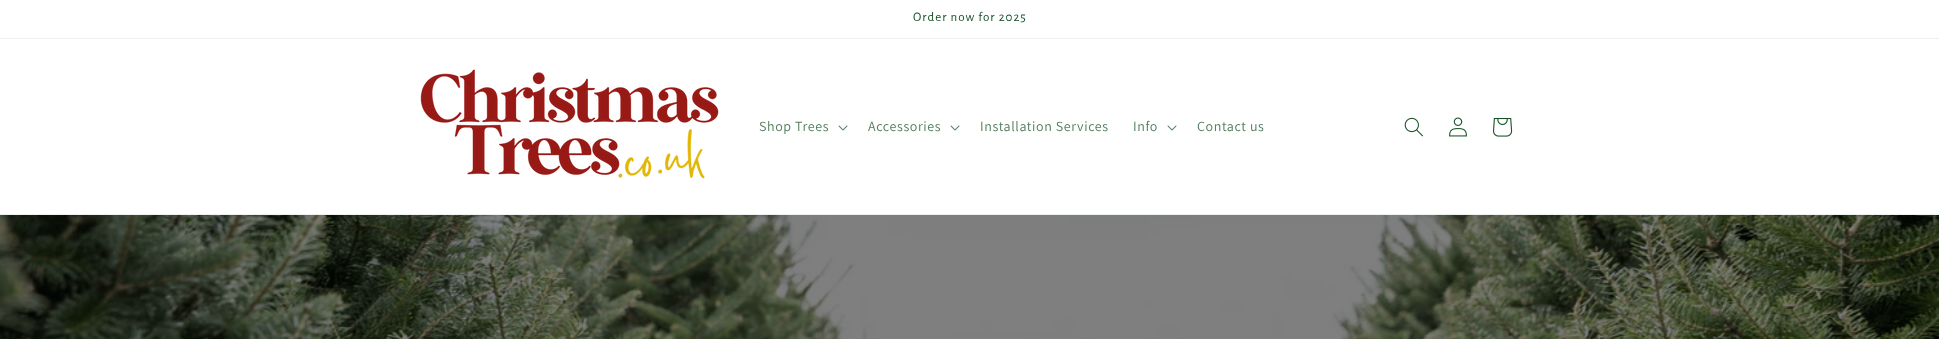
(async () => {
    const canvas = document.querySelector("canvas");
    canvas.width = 1939;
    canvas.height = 339;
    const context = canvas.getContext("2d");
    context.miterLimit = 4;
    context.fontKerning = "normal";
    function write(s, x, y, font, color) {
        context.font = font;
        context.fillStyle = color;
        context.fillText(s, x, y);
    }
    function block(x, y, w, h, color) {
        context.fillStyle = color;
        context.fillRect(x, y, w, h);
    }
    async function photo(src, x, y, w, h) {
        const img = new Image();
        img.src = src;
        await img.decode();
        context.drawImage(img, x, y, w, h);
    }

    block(0, 0, 1939, 339, "rgb(255, 255, 255)");
    block(0, 38, 1939, 1, "rgb(236, 241, 238)");
    context.letterSpacing = "1px";
    write("Order now for 2025", 913, 21, "13px Alegreya Sans", "rgb(23, 81, 38)");
    block(0, 214, 1939, 1, "rgb(236, 241, 238)");
    await photo("media/1.png", 420, 69, 299, 110);
    context.letterSpacing = "0.6px";
    write("Shop Trees", 759, 131, "14px Assistant", "rgb(81, 125, 92)");
    await photo("media/2.png", 838, 125, 10, 6);
    write("Accessories", 868, 131, "14px Assistant", "rgb(81, 125, 92)");
    await photo("media/2.png", 950, 125, 10, 6);
    write("Installation Services", 980, 131, "14px Assistant", "rgb(81, 125, 92)");
    write("Info", 1133, 131, "14px Assistant", "rgb(81, 125, 92)");
    await photo("media/2.png", 1167, 125, 10, 6);
    write("Contact us", 1197, 131, "14px Assistant", "rgb(81, 125, 92)");
    await photo("media/3.png", 1404, 117, 19, 20);
    await photo("media/4.png", 1449, 117, 18, 20);
    await photo("media/5.png", 1493, 118, 20, 19);
    await photo("media/6.png", 0, 215, 1939, 124);
})();
